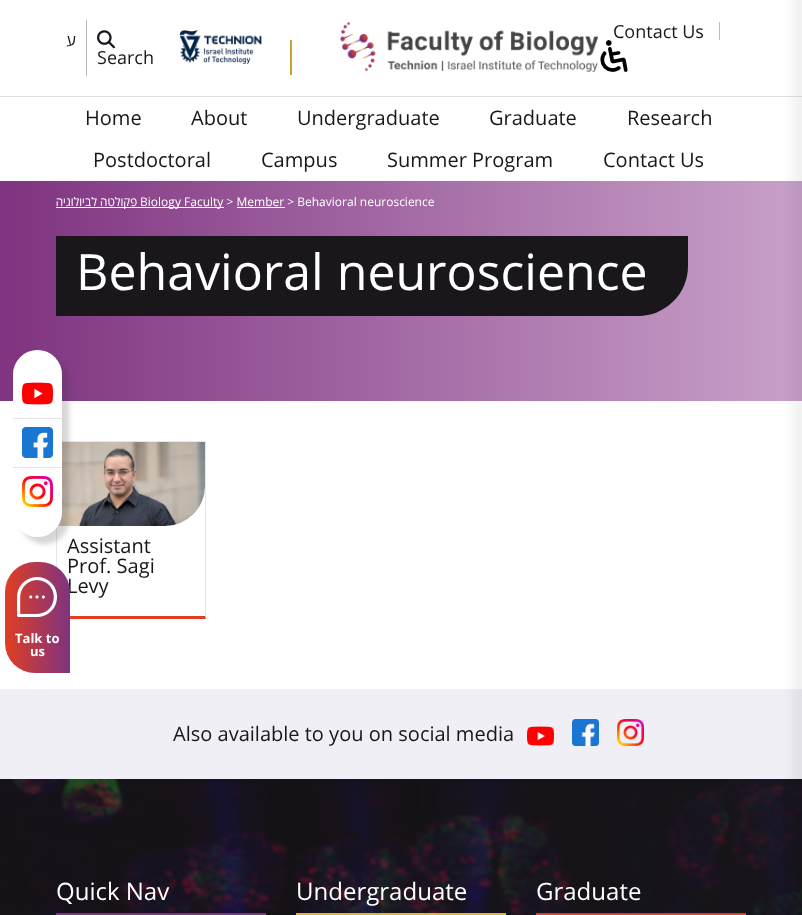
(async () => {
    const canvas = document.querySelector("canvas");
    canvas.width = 802;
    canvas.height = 915;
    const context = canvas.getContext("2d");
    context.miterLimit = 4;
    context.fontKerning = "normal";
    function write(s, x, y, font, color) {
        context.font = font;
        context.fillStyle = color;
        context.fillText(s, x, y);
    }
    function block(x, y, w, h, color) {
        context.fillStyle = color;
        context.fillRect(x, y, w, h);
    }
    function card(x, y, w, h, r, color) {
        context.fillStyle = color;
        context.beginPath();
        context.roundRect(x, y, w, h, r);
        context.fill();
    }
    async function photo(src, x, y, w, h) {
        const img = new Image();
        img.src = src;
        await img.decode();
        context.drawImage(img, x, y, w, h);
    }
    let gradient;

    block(0, 0, 802, 915, "rgb(255, 255, 255)");
    await photo("media/1.png", 179, 30, 83, 34);
    block(290, 40, 2, 35, "rgb(205, 158, 48)");
    await photo("media/2.png", 340, 22, 258, 50);
    block(719, 22, 1, 18, "rgb(186, 185, 186)");
    write("Contact Us", 613, 38, "18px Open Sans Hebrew", "rgb(25, 23, 28)");
    await photo("media/3.png", 600, 40, 28, 32);
    block(86, 20, 1, 56, "rgb(186, 185, 186)");
    context.direction = "rtl";
    write("ע", 76, 46, "16px Open Sans Hebrew", "rgb(25, 23, 28)");
    await photo("media/4.png", 97, 30, 18, 19);
    context.direction = "ltr";
    write("Search", 97, 64, "18px Open Sans Hebrew", "rgb(25, 23, 28)");
    block(0, 96, 802, 1, "rgb(224, 224, 224)");
    write("Home", 85, 125, "20px Open Sans Hebrew", "rgb(25, 23, 28)");
    write("About", 191, 125, "20px Open Sans Hebrew", "rgb(25, 23, 28)");
    write("Undergraduate", 297, 125, "20px Open Sans Hebrew", "rgb(25, 23, 28)");
    write("Graduate", 489, 125, "20px Open Sans Hebrew", "rgb(25, 23, 28)");
    write("Research", 627, 125, "20px Open Sans Hebrew", "rgb(25, 23, 28)");
    write("Postdoctoral", 93, 167, "20px Open Sans Hebrew", "rgb(25, 23, 28)");
    write("Campus", 261, 167, "20px Open Sans Hebrew", "rgb(25, 23, 28)");
    write("Summer Program", 387, 167, "20px Open Sans Hebrew", "rgb(25, 23, 28)");
    write("Contact Us", 603, 167, "20px Open Sans Hebrew", "rgb(25, 23, 28)");
    gradient = context.createLinearGradient(0, 291, 802, 291);
    gradient.addColorStop(0, "rgb(127, 51, 128)");
    gradient.addColorStop(1, "rgb(200, 161, 201)");
    context.fillStyle = gradient;
    context.fillRect(0, 181, 802, 220);
    block(56, 207, 168, 1, "rgb(255, 255, 255)");
    context.direction = "rtl";
    write("פקולטה לביולוגיה", 137, 206, "12px Open Sans Hebrew", "rgb(255, 255, 255)");
    context.direction = "ltr";
    write("Biology Faculty > Member > Behavioral neuroscience", 140, 206, "12px Open Sans Hebrew", "rgb(255, 255, 255)");
    block(237, 207, 48, 1, "rgb(255, 255, 255)");
    context.fillStyle = "rgb(25, 23, 28)";
    context.beginPath();
    context.roundRect(56, 236, 632, 80, [0, 0, 50, 0]);
    context.fill();
    write("Behavioral neuroscience", 76, 290, "50px Open Sans Hebrew", "rgb(255, 255, 255)");
    block(56, 441, 150, 1, "rgb(226, 233, 233)");
    context.beginPath();
    context.moveTo(206, 441);
    context.lineTo(206, 619);
    context.lineTo(205, 616);
    context.lineTo(205, 442);
    context.closePath();
    context.fill();
    context.fillStyle = "rgb(225, 63, 32)";
    context.beginPath();
    context.moveTo(206, 619);
    context.lineTo(56, 619);
    context.lineTo(57, 616);
    context.lineTo(205, 616);
    context.closePath();
    context.fill();
    context.fillStyle = "rgb(226, 233, 233)";
    context.beginPath();
    context.moveTo(56, 619);
    context.lineTo(56, 441);
    context.lineTo(57, 442);
    context.lineTo(57, 616);
    context.closePath();
    context.fill();
    await photo("media/5.png", 58, 442, 147, 84);
    write("Assistant", 67, 553, "20px Open Sans Hebrew", "rgb(25, 23, 28)");
    write("Prof. Sagi", 67, 573, "20px Open Sans Hebrew", "rgb(25, 23, 28)");
    write("Levy", 67, 593, "20px Open Sans Hebrew", "rgb(25, 23, 28)");
    context.fillStyle = "rgba(50, 50, 50, 0.2)";
    context.filter = "blur(2.5px)";
    context.beginPath();
    context.roundRect(20, 357, 49, 187, 24.5);
    context.fill();
    context.filter = "none";
    card(13, 350, 49, 187, 24.5, "rgb(255, 255, 255)");
    block(13, 418, 49, 1, "rgb(230, 229, 232)");
    await photo("media/6.png", 22, 382, 31, 23);
    block(13, 467, 49, 1, "rgb(230, 229, 232)");
    await photo("media/7.png", 22, 427, 31, 31);
    await photo("media/8.png", 22, 476, 31, 31);
    gradient = context.createLinearGradient(70, 618, 5, 618);
    gradient.addColorStop(0, "rgb(126, 51, 129)");
    gradient.addColorStop(1, "rgb(224, 62, 33)");
    context.fillStyle = gradient;
    context.beginPath();
    context.roundRect(5, 562, 65, 111, [30, 30, 0, 30]);
    context.fill();
    await photo("media/9.png", 17, 577, 40, 40);
    write("Talk to", 15, 643, "bold 13px Open Sans Hebrew", "rgb(255, 255, 255)");
    write("us", 30, 656, "bold 13px Open Sans Hebrew", "rgb(255, 255, 255)");
    block(0, 689, 802, 90, "rgb(241, 239, 246)");
    write("Also available to you on social media", 173, 741, "20px Open Sans Hebrew", "rgb(25, 23, 28)");
    await photo("media/10.png", 527, 726, 27, 20);
    await photo("media/11.png", 572, 719, 27, 27);
    await photo("media/12.png", 617, 719, 27, 27);
    await photo("media/13.png", 0, 779, 802, 136);
    block(56, 913, 210, 2, "rgb(126, 51, 130)");
    write("Quick Nav", 56, 900, "24px Open Sans Hebrew", "rgb(255, 255, 255)");
    block(296, 913, 210, 2, "rgb(231, 178, 44)");
    write("Undergraduate", 296, 900, "24px Open Sans Hebrew", "rgb(255, 255, 255)");
    block(536, 913, 210, 2, "rgb(223, 62, 35)");
    write("Graduate", 536, 900, "24px Open Sans Hebrew", "rgb(255, 255, 255)");
    context.fillStyle = "rgba(0, 0, 0, 0.05)";
    context.filter = "blur(5px)";
    context.beginPath();
    context.rect(791, -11, 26, 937);
    context.fill();
    context.filter = "none";
})();
